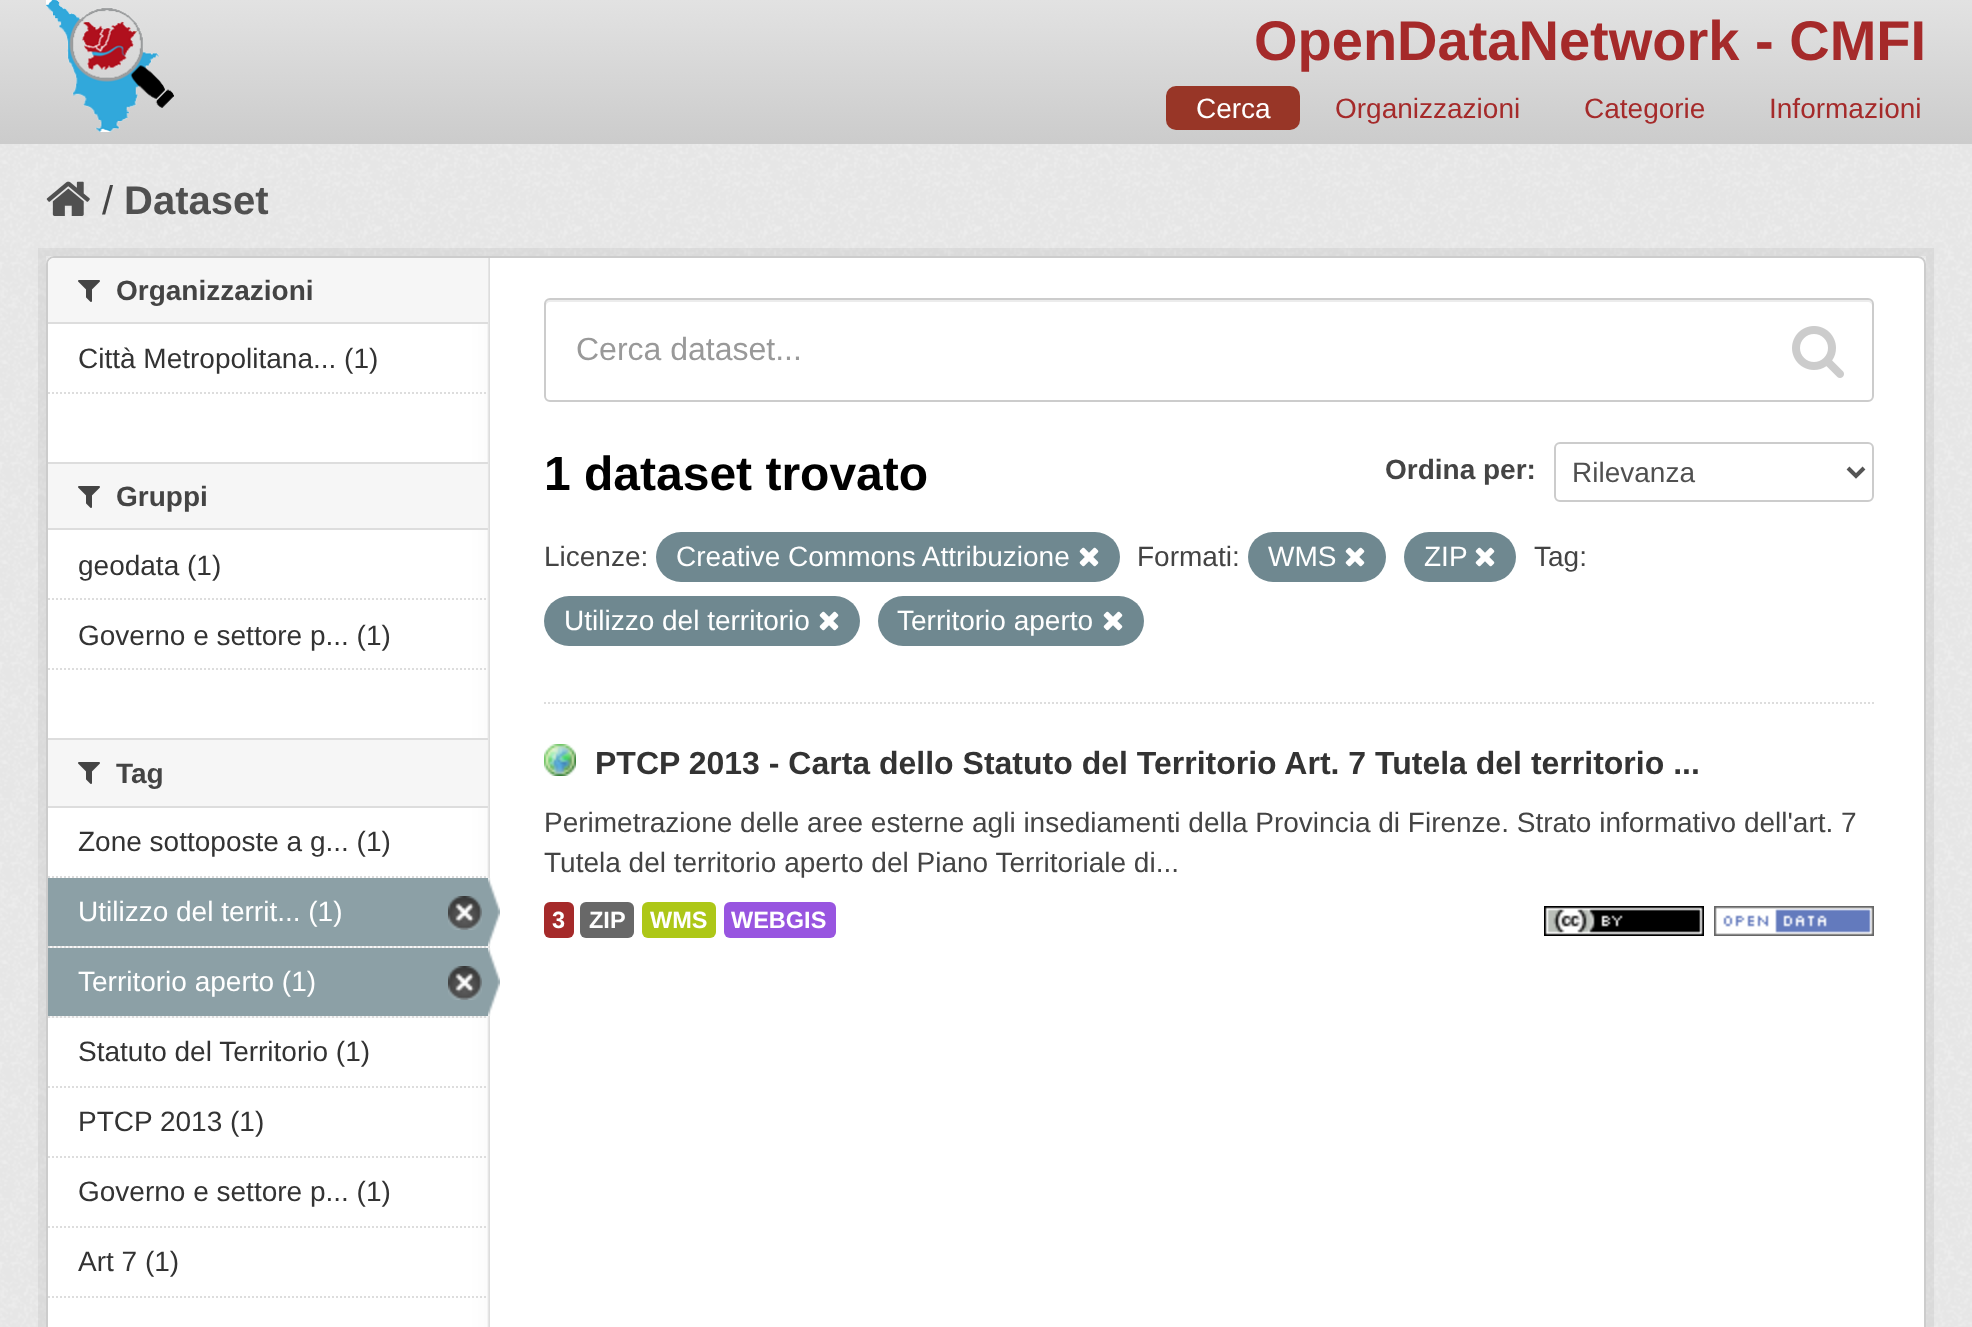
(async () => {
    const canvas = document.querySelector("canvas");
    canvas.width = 1972;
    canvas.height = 1327;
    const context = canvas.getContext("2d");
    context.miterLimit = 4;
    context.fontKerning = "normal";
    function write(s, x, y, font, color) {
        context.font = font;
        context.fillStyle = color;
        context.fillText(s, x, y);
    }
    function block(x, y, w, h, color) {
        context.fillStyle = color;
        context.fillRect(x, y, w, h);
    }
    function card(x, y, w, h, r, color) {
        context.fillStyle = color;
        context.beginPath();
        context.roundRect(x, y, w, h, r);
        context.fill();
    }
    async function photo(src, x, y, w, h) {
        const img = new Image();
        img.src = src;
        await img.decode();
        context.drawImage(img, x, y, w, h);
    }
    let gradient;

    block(0, 0, 1972, 1327, "rgb(255, 255, 255)");
    gradient = context.createLinearGradient(986, 0, 986, 142);
    gradient.addColorStop(0, "rgb(226, 226, 226)");
    gradient.addColorStop(1, "rgb(204, 204, 204)");
    context.fillStyle = gradient;
    context.fillRect(0, 0, 1972, 142);
    block(0, 142, 1972, 2, "rgb(204, 204, 204)");
    await photo("media/1.png", 46, 0, 128, 132);
    write("OpenDataNetwork - CMFI", 1254, 60, "bold 56px Liberation Sans", "rgb(165, 42, 42)");
    card(1166, 86, 134, 44, 10, "rgb(152, 54, 39)");
    write("Cerca", 1196, 118, "28px Liberation Sans", "rgb(255, 255, 255)");
    write("Organizzazioni", 1335, 118, "28px Liberation Sans", "rgb(165, 42, 42)");
    write("Categorie", 1584, 118, "28px Liberation Sans", "rgb(165, 42, 42)");
    write("Informazioni", 1769, 118, "28px Liberation Sans", "rgb(165, 42, 42)");
    block(0, 144, 1972, 1183, "rgb(238, 238, 238)");
    await photo("media/2.png", 0, 144, 1972, 1183);
    await photo("media/3.png", 46, 181, 44, 35);
    write("/", 102, 214, "40px Liberation Sans", "rgb(68, 68, 68)");
    write("Dataset", 124, 214, "bold 40px Liberation Sans", "rgb(80, 80, 80)");
    context.strokeStyle = "rgba(0, 0, 0, 0.05)";
    context.lineWidth = 8;
    context.strokeRect(42, 252, 1888, 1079);
    card(46, 256, 1880, 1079, 8, "rgb(255, 255, 255)");
    await photo("media/4.png", 48, 256, 442, 1071);
    context.beginPath();
    context.roundRect(47, 257, 1878, 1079, 7);
    context.strokeStyle = "rgb(204, 204, 204)";
    context.lineWidth = 2;
    context.stroke();
    context.fillStyle = "rgb(246, 246, 246)";
    context.beginPath();
    context.roundRect(48, 258, 440, 66, [6, 0, 0, 0]);
    context.fill();
    block(48, 322, 440, 2, "rgb(221, 221, 221)");
    await photo("media/5.png", 78, 280, 22, 22);
    write("Organizzazioni", 116, 300, "bold 28px Liberation Sans", "rgb(68, 68, 68)");
    write("Città Metropolitana... (1)", 78, 368, "28px Liberation Sans", "rgb(51, 51, 51)");
    context.beginPath();
    context.moveTo(48, 393);
    context.lineTo(488, 393);
    context.strokeStyle = "rgb(221, 221, 221)";
    context.setLineDash([2, 2]);
    context.stroke();
    block(48, 464, 439, 64, "rgb(246, 246, 246)");
    block(48, 462, 440, 2, "rgb(221, 221, 221)");
    block(48, 528, 440, 2, "rgb(221, 221, 221)");
    await photo("media/5.png", 78, 486, 22, 22);
    write("Gruppi", 116, 506, "bold 28px Liberation Sans", "rgb(68, 68, 68)");
    context.beginPath();
    context.moveTo(48, 599);
    context.lineTo(488, 599);
    context.stroke();
    write("geodata (1)", 78, 575, "28px Liberation Sans", "rgb(51, 51, 51)");
    write("Governo e settore p... (1)", 78, 645, "28px Liberation Sans", "rgb(51, 51, 51)");
    context.beginPath();
    context.moveTo(48, 669);
    context.lineTo(488, 669);
    context.stroke();
    block(48, 740, 439, 66, "rgb(246, 246, 246)");
    block(48, 738, 440, 2, "rgb(221, 221, 221)");
    block(48, 806, 440, 2, "rgb(221, 221, 221)");
    await photo("media/5.png", 78, 762, 22, 22);
    write("Tag", 116, 783, "bold 28px Liberation Sans", "rgb(68, 68, 68)");
    context.beginPath();
    context.moveTo(48, 877);
    context.lineTo(488, 877);
    context.stroke();
    write("Zone sottoposte a g... (1)", 78, 851, "28px Liberation Sans", "rgb(51, 51, 51)");
    block(50, 946, 438, 2, "rgb(246, 246, 246)");
    context.beginPath();
    context.moveTo(48, 947);
    context.lineTo(488, 947);
    context.stroke();
    block(48, 878, 440, 68, "rgb(140, 160, 166)");
    write("Utilizzo del territ... (1)", 78, 921, "28px Liberation Sans", "rgb(255, 255, 255)");
    await photo("media/6.png", 448, 896, 34, 34);
    await photo("media/7.png", 488, 878, 12, 68);
    block(50, 1016, 438, 2, "rgb(246, 246, 246)");
    context.beginPath();
    context.moveTo(48, 1017);
    context.lineTo(488, 1017);
    context.stroke();
    block(48, 948, 440, 68, "rgb(140, 160, 166)");
    write("Territorio aperto (1)", 78, 991, "28px Liberation Sans", "rgb(255, 255, 255)");
    await photo("media/6.png", 448, 966, 34, 34);
    await photo("media/7.png", 488, 948, 12, 68);
    context.beginPath();
    context.moveTo(48, 1087);
    context.lineTo(488, 1087);
    context.stroke();
    write("Statuto del Territorio (1)", 78, 1061, "28px Liberation Sans", "rgb(51, 51, 51)");
    context.beginPath();
    context.moveTo(48, 1157);
    context.lineTo(488, 1157);
    context.stroke();
    write("PTCP 2013 (1)", 78, 1131, "28px Liberation Sans", "rgb(51, 51, 51)");
    context.beginPath();
    context.moveTo(48, 1227);
    context.lineTo(488, 1227);
    context.stroke();
    write("Governo e settore p... (1)", 78, 1201, "28px Liberation Sans", "rgb(51, 51, 51)");
    write("Art 7 (1)", 78, 1271, "28px Liberation Sans", "rgb(51, 51, 51)");
    context.beginPath();
    context.moveTo(48, 1297);
    context.lineTo(488, 1297);
    context.stroke();
    context.beginPath();
    context.moveTo(544, 703);
    context.lineTo(1874, 703);
    context.stroke();
    context.fillStyle = "rgb(236, 236, 236)";
    context.beginPath();
    context.moveTo(550, 302);
    context.lineTo(1868, 302);
    context.bezierCurveTo(1870, 302, 1872, 304, 1872, 306);
    context.bezierCurveTo(1872, 303, 1872, 300, 1868, 300);
    context.lineTo(550, 300);
    context.bezierCurveTo(546, 300, 546, 303, 546, 306);
    context.bezierCurveTo(546, 304, 548, 302, 550, 302);
    context.closePath();
    context.fill();
    context.beginPath();
    context.roundRect(545, 299, 1328, 102, 5);
    context.strokeStyle = "rgb(204, 204, 204)";
    context.setLineDash([]);
    context.stroke();
    write("Cerca dataset...", 576, 360, "32px Liberation Sans", "rgb(153, 153, 153)");
    await photo("media/8.png", 1792, 326, 52, 52);
    write("1 dataset trovato", 544, 490, "bold 48px Liberation Sans", "rgb(0, 0, 0)");
    write("Ordina per:", 1385, 479, "bold 28px Liberation Sans", "rgb(68, 68, 68)");
    context.beginPath();
    context.roundRect(1555, 443, 318, 58, 5);
    context.stroke();
    context.beginPath();
    context.moveTo(1848, 468);
    context.lineTo(1856, 476);
    context.lineTo(1864, 468);
    context.strokeStyle = "rgb(85, 85, 85)";
    context.lineWidth = 4;
    context.stroke();
    write("Rilevanza", 1572, 482, "28px Liberation Sans", "rgb(80, 80, 80)");
    write("Licenze:", 544, 566, "28px Liberation Sans", "rgb(68, 68, 68)");
    card(656, 532, 464, 50, 25, "rgb(111, 136, 144)");
    write("Creative Commons Attribuzione", 676, 566, "28px Liberation Sans", "rgb(255, 255, 255)");
    await photo("media/9.png", 1079, 547, 20, 20);
    write("Formati:", 1137, 566, "28px Liberation Sans", "rgb(68, 68, 68)");
    card(1248, 532, 138, 50, 25, "rgb(111, 136, 144)");
    write("WMS", 1268, 566, "28px Liberation Sans", "rgb(255, 255, 255)");
    await photo("media/9.png", 1345, 547, 20, 20);
    card(1404, 532, 112, 50, 25, "rgb(111, 136, 144)");
    write("ZIP", 1424, 566, "28px Liberation Sans", "rgb(255, 255, 255)");
    await photo("media/9.png", 1475, 547, 20, 20);
    write("Tag:", 1534, 566, "28px Liberation Sans", "rgb(68, 68, 68)");
    card(544, 596, 316, 50, 25, "rgb(111, 136, 144)");
    write("Utilizzo del territorio", 564, 630, "28px Liberation Sans", "rgb(255, 255, 255)");
    await photo("media/9.png", 819, 611, 20, 20);
    card(878, 596, 266, 50, 25, "rgb(111, 136, 144)");
    write("Territorio aperto", 897, 630, "28px Liberation Sans", "rgb(255, 255, 255)");
    await photo("media/9.png", 1103, 611, 20, 20);
    await photo("media/10.png", 544, 744, 32, 32);
    write("PTCP 2013 - Carta dello Statuto del Territorio Art. 7 Tutela del territorio ...", 595, 774, "bold 32px Liberation Sans", "rgb(51, 51, 51)");
    write("Perimetrazione delle aree esterne agli insediamenti della Provincia di Firenze. Strato informativo dell'art. 7", 544, 832, "28px Liberation Sans", "rgb(68, 68, 68)");
    write("Tutela del territorio aperto del Piano Territoriale di...", 544, 872, "28px Liberation Sans", "rgb(68, 68, 68)");
    card(544, 902, 30, 36, 6, "rgb(165, 42, 42)");
    write("3", 552, 928, "bold 23.5px Liberation Sans", "rgb(255, 255, 255)");
    card(580, 902, 54, 36, 6, "rgb(104, 104, 104)");
    write("ZIP", 589, 928, "bold 23.5px Liberation Sans", "rgb(255, 255, 255)");
    card(642, 902, 74, 36, 6, "rgb(173, 199, 23)");
    write("WMS", 650, 928, "bold 23.5px Liberation Sans", "rgb(255, 255, 255)");
    card(724, 902, 112, 36, 6, "rgb(152, 85, 224)");
    write("WEBGIS", 731, 928, "bold 23.5px Liberation Sans", "rgb(255, 255, 255)");
    await photo("media/11.png", 1544, 906, 160, 30);
    await photo("media/12.png", 1714, 906, 160, 30);
})();
